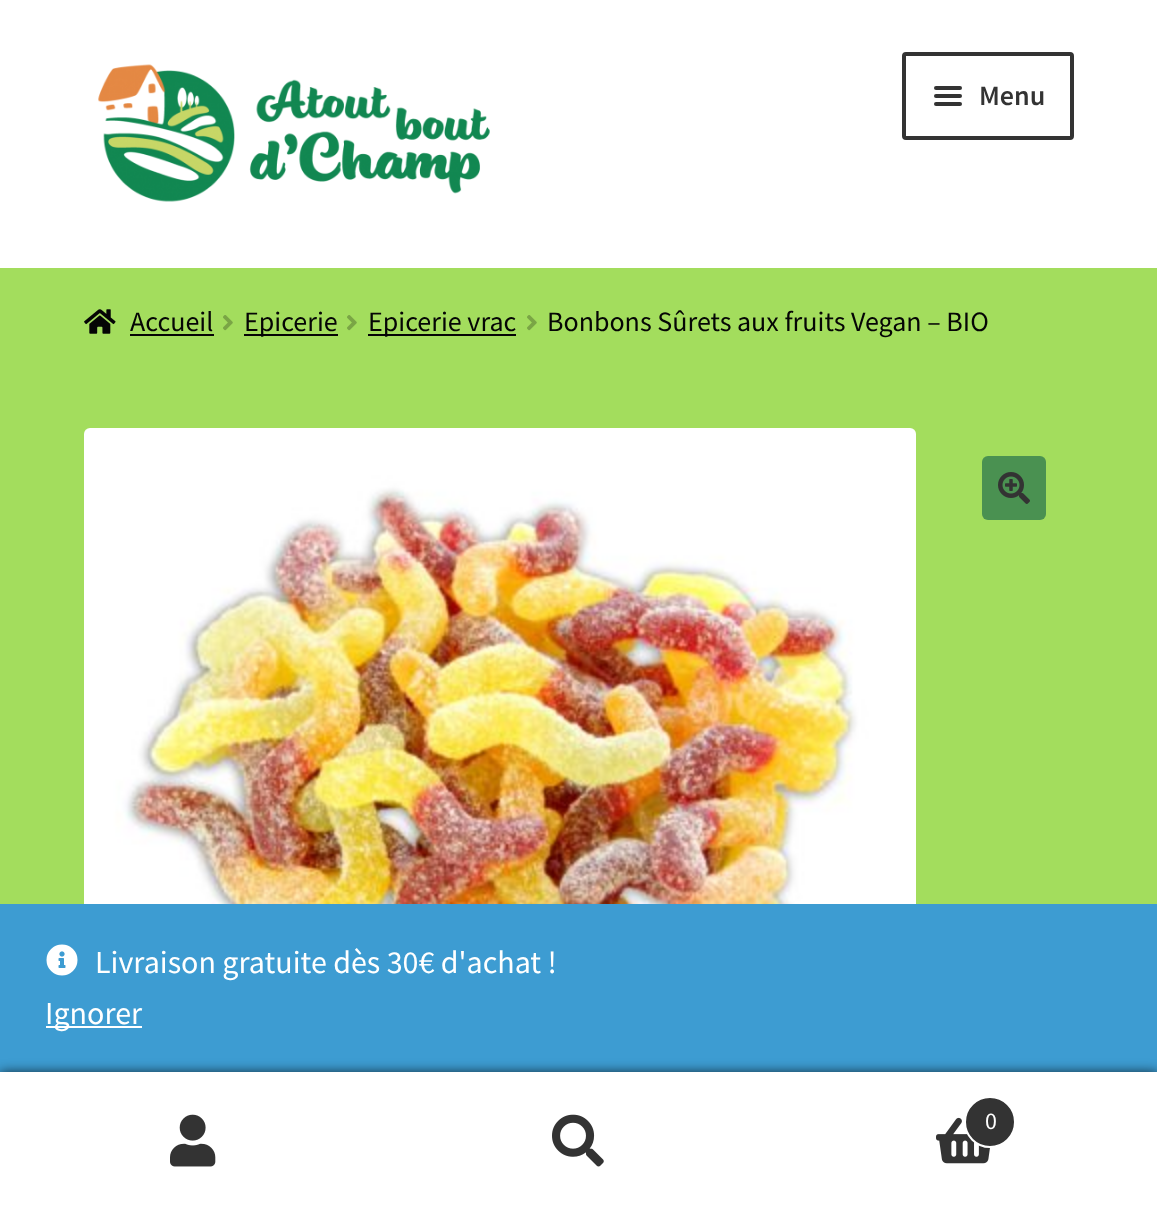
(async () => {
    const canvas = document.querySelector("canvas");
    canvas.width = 1157;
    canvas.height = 1209;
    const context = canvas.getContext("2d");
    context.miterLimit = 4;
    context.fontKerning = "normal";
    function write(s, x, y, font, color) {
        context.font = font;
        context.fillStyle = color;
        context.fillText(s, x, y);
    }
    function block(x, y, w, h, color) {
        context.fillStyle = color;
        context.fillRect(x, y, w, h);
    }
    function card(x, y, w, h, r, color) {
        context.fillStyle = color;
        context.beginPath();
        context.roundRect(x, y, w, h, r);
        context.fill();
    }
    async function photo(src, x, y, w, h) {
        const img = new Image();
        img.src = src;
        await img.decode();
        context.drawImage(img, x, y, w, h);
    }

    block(0, 0, 1157, 1209, "rgb(163, 221, 93)");
    block(0, 0, 1157, 268, "rgb(255, 255, 255)");
    await photo("media/1.png", 98, 64, 392, 138);
    context.beginPath();
    context.roundRect(904, 54, 168, 84, 2);
    context.strokeStyle = "rgb(51, 51, 51)";
    context.lineWidth = 4;
    context.stroke();
    card(934, 86, 28, 4, 2, "rgb(51, 51, 51)");
    card(934, 94, 28, 4, 2, "rgb(51, 51, 51)");
    write("Menu", 979, 105, "600 28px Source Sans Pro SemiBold", "rgb(51, 51, 51)");
    card(934, 102, 28, 4, 2, "rgb(51, 51, 51)");
    await photo("media/2.png", 84, 309, 32, 25);
    write("Accueil", 130, 331, "28px Source Sans Pro", "rgb(5, 5, 5)");
    block(130, 334, 84, 2, "rgb(5, 5, 5)");
    await photo("media/3.png", 223, 315, 10, 16);
    block(244, 334, 94, 2, "rgb(5, 5, 5)");
    write("Epicerie", 244, 331, "28px Source Sans Pro", "rgb(5, 5, 5)");
    await photo("media/3.png", 347, 315, 10, 16);
    block(368, 334, 148, 2, "rgb(5, 5, 5)");
    write("Epicerie vrac", 368, 331, "28px Source Sans Pro", "rgb(5, 5, 5)");
    await photo("media/3.png", 527, 315, 10, 16);
    write("Bonbons Sûrets aux fruits Vegan – BIO", 547, 331, "28px Source Sans Pro", "rgb(5, 5, 5)");
    await photo("media/4.png", 84, 428, 832, 476);
    card(982, 456, 64, 64, 6, "rgb(74, 145, 81)");
    await photo("media/5.png", 998, 472, 32, 32);
    block(0, 904, 1157, 168, "rgb(61, 156, 210)");
    context.fillStyle = "rgba(0, 0, 0, 0.7)";
    context.filter = "blur(6px)";
    context.beginPath();
    context.rect(0, 1072, 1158, 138);
    context.fill();
    context.filter = "none";
    block(0, 1072, 1157, 2, "rgb(255, 255, 255)");
    block(0, 1074, 1157, 135, "rgb(255, 255, 255)");
    await photo("media/6.png", 170, 1114, 46, 53);
    await photo("media/7.png", 552, 1114, 52, 53);
    await photo("media/8.png", 936, 1117, 55, 47);
    context.fillStyle = "rgb(51, 51, 51)";
    context.beginPath();
    context.arc(990, 1122, 25, 0, Math.PI * 2);
    context.fill();
    context.strokeStyle = "rgb(255, 255, 255)";
    context.lineWidth = 2;
    context.stroke();
    write("0", 985, 1129, "24px Source Sans Pro", "rgb(255, 255, 255)");
    await photo("media/9.png", 46, 944, 32, 32);
    write("Livraison gratuite dès 30€ d'achat !", 95, 973, "32px Source Sans Pro", "rgb(255, 255, 255)");
    block(46, 1026, 96, 2, "rgb(255, 255, 255)");
    write("Ignorer", 45, 1024, "32px Source Sans Pro", "rgb(255, 255, 255)");
})();
